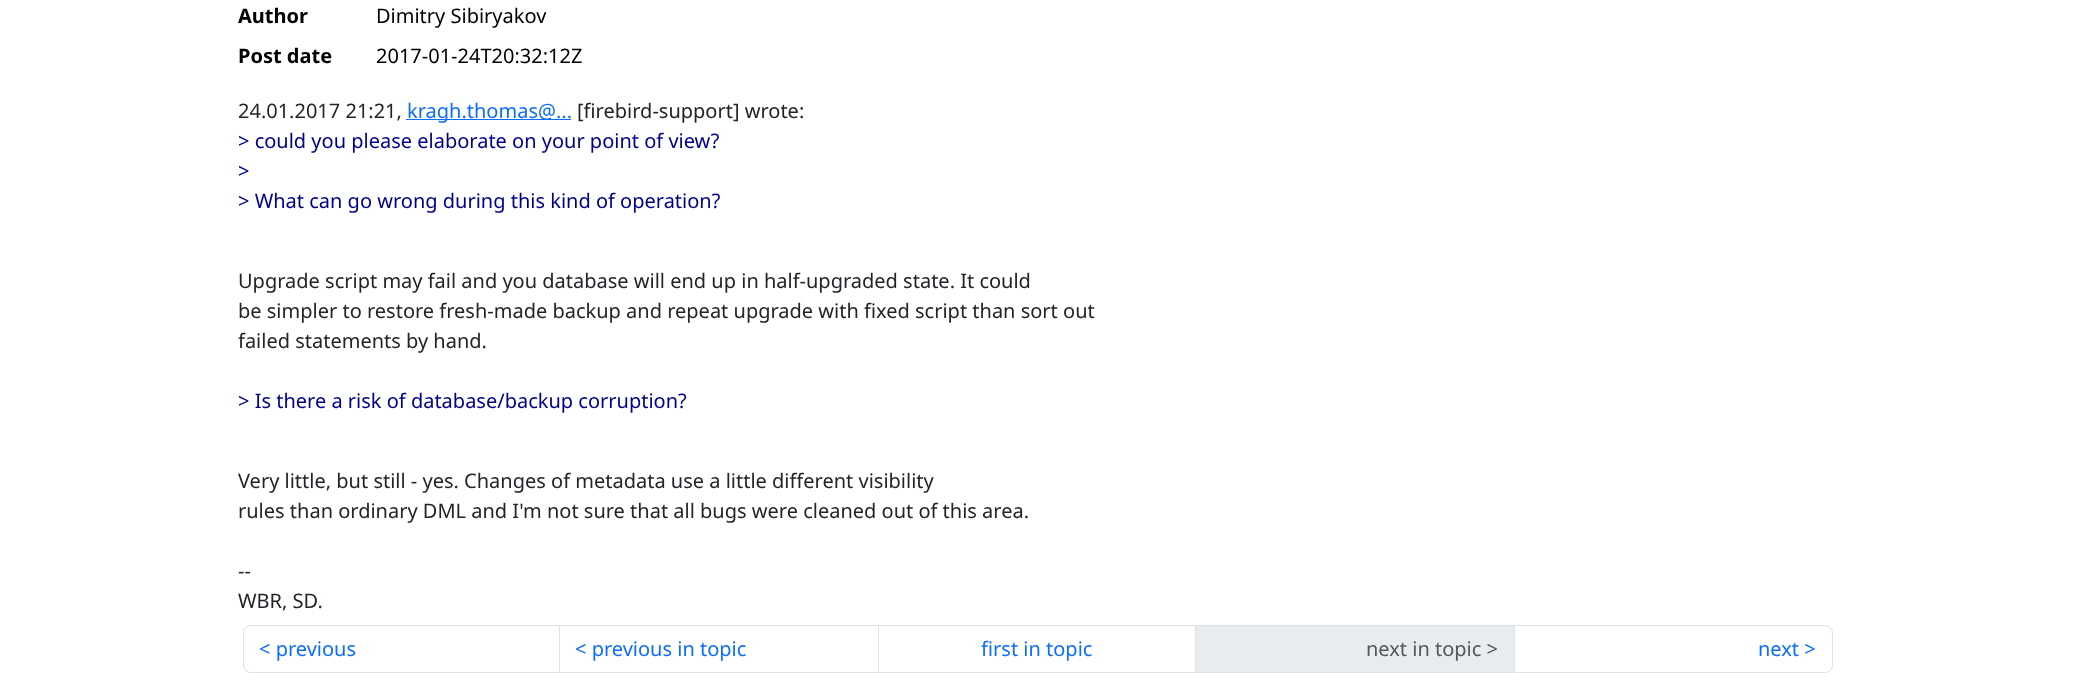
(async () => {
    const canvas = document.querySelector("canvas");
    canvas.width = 2074;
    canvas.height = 692;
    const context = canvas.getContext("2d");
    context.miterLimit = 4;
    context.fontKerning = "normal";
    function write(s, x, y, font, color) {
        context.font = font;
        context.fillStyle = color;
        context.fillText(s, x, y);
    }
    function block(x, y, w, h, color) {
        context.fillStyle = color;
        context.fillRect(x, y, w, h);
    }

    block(0, 0, 2074, 692, "rgb(255, 255, 255)");
    write("Author", 238, 23, "bold 20px Noto Sans", "rgb(0, 0, 0)");
    write("Dimitry Sibiryakov", 376, 23, "20px Noto Sans", "rgb(0, 0, 0)");
    write("Post date", 238, 63, "bold 20px Noto Sans", "rgb(0, 0, 0)");
    write("2017-01-24T20:32:12Z", 376, 63, "20px Noto Sans", "rgb(0, 0, 0)");
    write("24.01.2017 21:21,", 238, 118, "20px Noto Sans", "rgb(33, 37, 41)");
    block(406, 119, 165, 1, "rgb(13, 110, 253)");
    write("kragh.thomas@...", 407, 118, "20px Noto Sans", "rgb(13, 110, 253)");
    write("[firebird-support] wrote:", 577, 118, "20px Noto Sans", "rgb(33, 37, 41)");
    write("> could you please elaborate on your point of view?", 238, 148, "20px Noto Sans", "rgb(0, 0, 139)");
    write(">", 238, 178, "20px Noto Sans", "rgb(0, 0, 139)");
    write("> What can go wrong during this kind of operation?", 238, 208, "20px Noto Sans", "rgb(0, 0, 139)");
    write("Upgrade script may fail and you database will end up in half-upgraded state. It could", 238, 288, "20px Noto Sans", "rgb(33, 37, 41)");
    write("be simpler to restore fresh-made backup and repeat upgrade with fixed script than sort out", 238, 318, "20px Noto Sans", "rgb(33, 37, 41)");
    write("failed statements by hand.", 238, 348, "20px Noto Sans", "rgb(33, 37, 41)");
    write("> Is there a risk of database/backup corruption?", 238, 408, "20px Noto Sans", "rgb(0, 0, 139)");
    write("Very little, but still - yes. Changes of metadata use a little different visibility", 238, 488, "20px Noto Sans", "rgb(33, 37, 41)");
    write("rules than ordinary DML and I'm not sure that all bugs were cleaned out of this area.", 238, 518, "20px Noto Sans", "rgb(33, 37, 41)");
    write("--", 238, 578, "20px Noto Sans", "rgb(33, 37, 41)");
    write("WBR, SD.", 238, 608, "20px Noto Sans", "rgb(33, 37, 41)");
    context.beginPath();
    context.roundRect(243.5, 625.5, 316, 47, [7.5, 0, 0, 7.5]);
    context.strokeStyle = "rgb(222, 226, 230)";
    context.stroke();
    write("< previous", 259, 656, "20px Noto Sans", "rgb(13, 110, 253)");
    context.strokeRect(559.5, 625.5, 319, 47);
    write("< previous in topic", 575, 656, "20px Noto Sans", "rgb(13, 110, 253)");
    context.strokeRect(878.5, 625.5, 317, 47);
    write("first in topic", 981, 656, "20px Noto Sans", "rgb(13, 110, 253)");
    context.fillStyle = "rgb(233, 236, 239)";
    context.beginPath();
    context.rect(1195.5, 625.5, 319, 47);
    context.fill();
    context.stroke();
    write("next in topic >", 1366, 656, "20px Noto Sans", "rgb(83, 87, 91)");
    context.fillStyle = "rgb(255, 255, 255)";
    context.beginPath();
    context.roundRect(1514.5, 625.5, 318, 47, [0, 7.5, 7.5, 0]);
    context.fill();
    context.stroke();
    write("next >", 1758, 656, "20px Noto Sans", "rgb(13, 110, 253)");
})();
